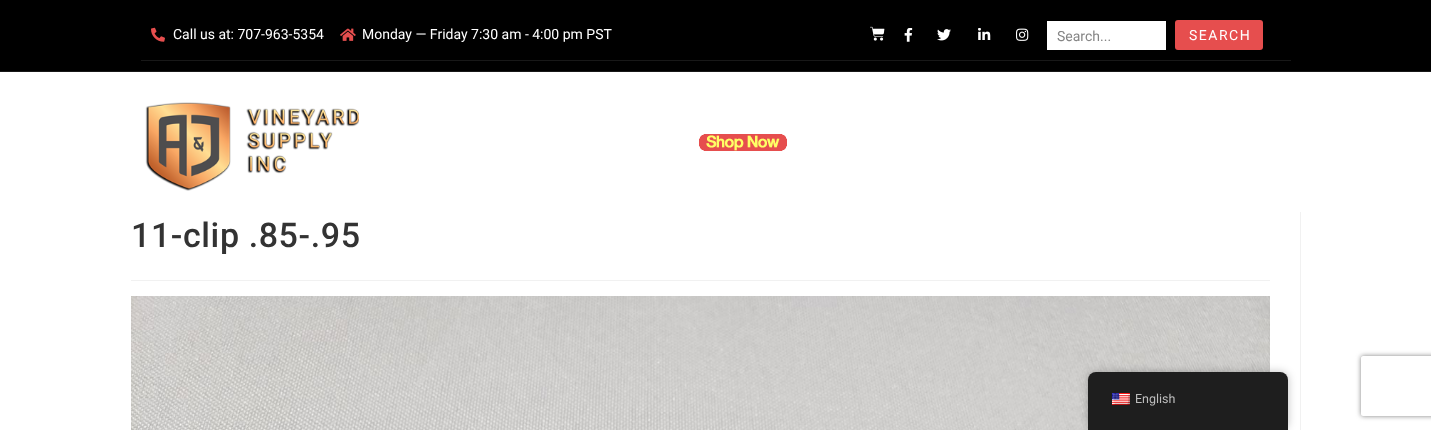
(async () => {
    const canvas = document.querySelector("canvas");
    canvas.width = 1431;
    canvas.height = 430;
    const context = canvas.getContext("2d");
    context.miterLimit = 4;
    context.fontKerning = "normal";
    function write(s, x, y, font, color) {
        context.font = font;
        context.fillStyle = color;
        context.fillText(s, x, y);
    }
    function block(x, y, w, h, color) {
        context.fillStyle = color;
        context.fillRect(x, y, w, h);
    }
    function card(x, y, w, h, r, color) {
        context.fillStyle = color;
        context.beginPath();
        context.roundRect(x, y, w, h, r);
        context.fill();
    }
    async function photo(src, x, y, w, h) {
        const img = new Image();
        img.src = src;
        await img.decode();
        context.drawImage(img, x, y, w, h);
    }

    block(0, 0, 1431, 430, "rgb(255, 255, 255)");
    block(0, 0, 1431, 71, "rgb(0, 0, 0)");
    block(0, 71, 1431, 1, "rgb(24, 24, 24)");
    block(141, 60, 1150, 1, "rgb(24, 24, 24)");
    await photo("media/1.png", 151, 27, 14, 15);
    write("Call us at: 707-963-5354", 173, 39, "14px Roboto", "rgb(255, 255, 255)");
    await photo("media/2.png", 340, 28, 16, 13);
    write("Monday — Friday 7:30 am - 4:00 pm PST", 362, 39, "14px Roboto", "rgb(255, 255, 255)");
    await photo("media/3.png", 870, 26, 15, 15);
    await photo("media/4.png", 904, 28, 9, 14);
    await photo("media/5.png", 937, 29, 14, 12);
    await photo("media/6.png", 978, 28, 13, 12);
    await photo("media/7.png", 1016, 28, 13, 13);
    block(1047, 21, 119, 29, "rgb(255, 255, 255)");
    write("Search...", 1057, 41, "14px Roboto", "rgb(133, 133, 133)");
    card(1175, 20, 88, 30, 3, "rgb(230, 78, 78)");
    context.letterSpacing = "1.5px";
    write("SEARCH", 1189, 40, "14px Roboto", "rgb(255, 255, 255)");
    await photo("media/8.png", 145, 102, 214, 89);
    await photo("media/9.png", 699, 134, 88, 17);
    block(1300, 212, 1, 218, "rgb(241, 241, 241)");
    block(131, 280, 1139, 1, "rgb(241, 241, 241)");
    context.letterSpacing = "0.6px";
    write("11-clip .85-.95", 131, 247, "500 34px Roboto", "rgb(51, 51, 51)");
    await photo("media/10.png", 131, 296, 1139, 134);
    context.fillStyle = "rgba(0, 0, 0, 0.25)";
    context.filter = "blur(4px)";
    context.beginPath();
    context.roundRect(1088, 372, 200, 58, 8);
    context.fill();
    context.filter = "none";
    context.fillStyle = "rgb(30, 30, 30)";
    context.beginPath();
    context.roundRect(1088, 372, 200, 58, [8, 8, 0, 0]);
    context.fill();
    await photo("media/11.png", 1112, 393, 18, 12);
    context.letterSpacing = "0px";
    write("English", 1135, 403, "12.5px Roboto", "rgb(189, 189, 189)");
    context.save();
    context.beginPath();
    context.moveTo(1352, 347);
    context.lineTo(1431, 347);
    context.lineTo(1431, 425);
    context.lineTo(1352, 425);
    context.closePath();
    context.moveTo(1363, 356);
    context.lineTo(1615, 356);
    context.bezierCurveTo(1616, 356, 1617, 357, 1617, 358);
    context.lineTo(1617, 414);
    context.bezierCurveTo(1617, 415, 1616, 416, 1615, 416);
    context.lineTo(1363, 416);
    context.bezierCurveTo(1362, 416, 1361, 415, 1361, 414);
    context.lineTo(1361, 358);
    context.bezierCurveTo(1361, 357, 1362, 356, 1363, 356);
    context.closePath();
    context.clip("evenodd");
    context.fillStyle = "rgb(128, 128, 128)";
    context.filter = "blur(2.5px)";
    context.beginPath();
    context.roundRect(1361, 356, 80, 60, 2);
    context.fill();
    context.filter = "none";
    context.restore();
})();
